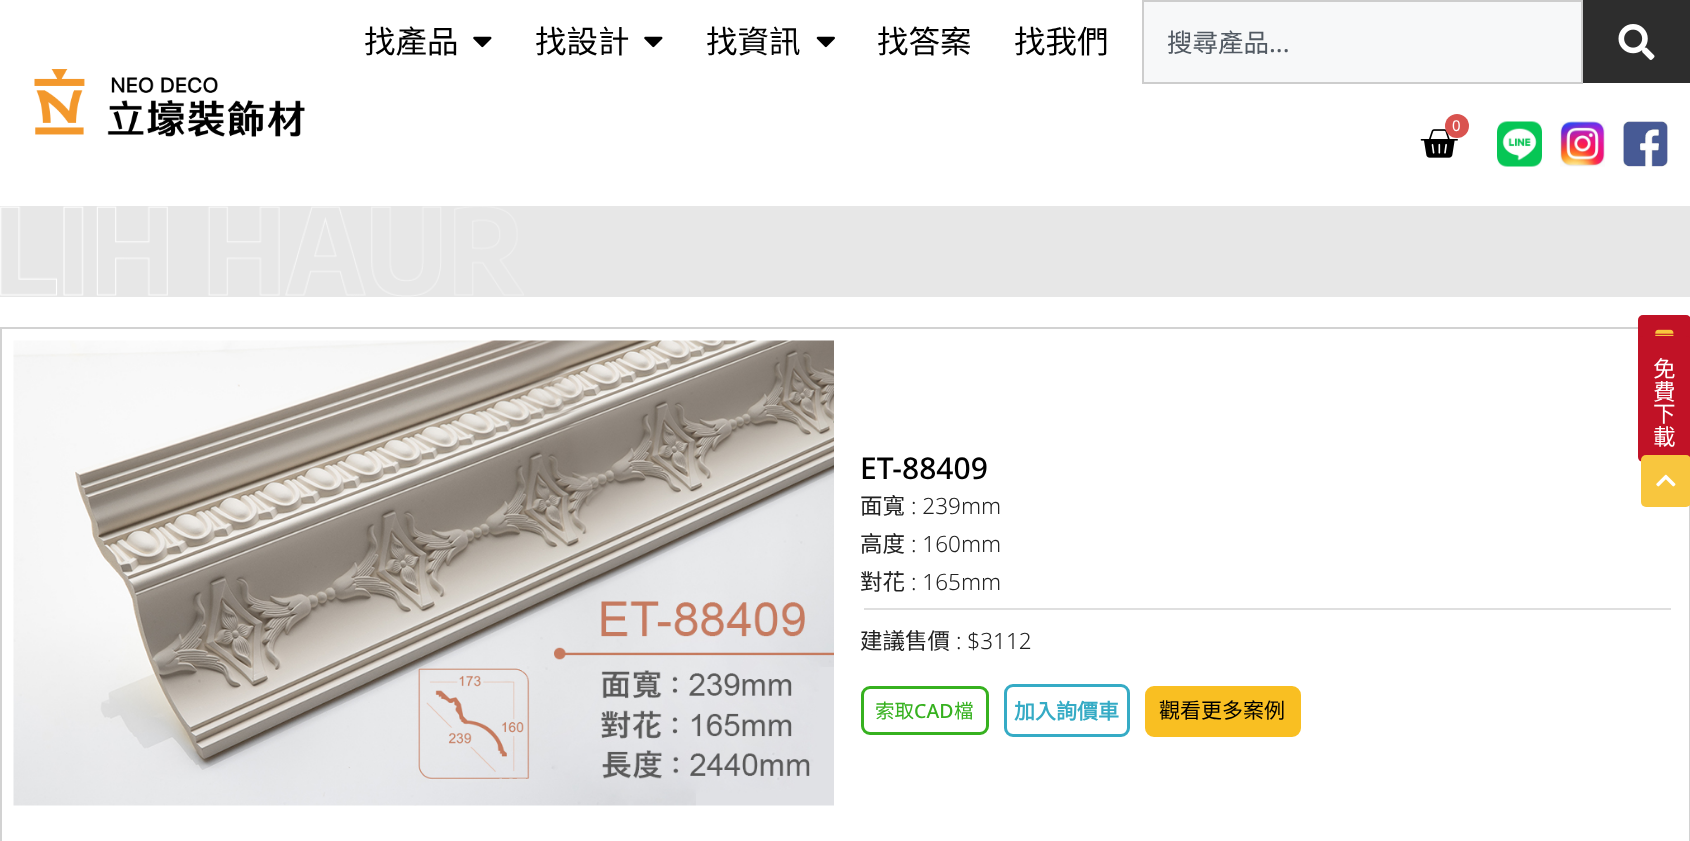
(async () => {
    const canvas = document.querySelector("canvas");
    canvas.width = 1690;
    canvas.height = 841;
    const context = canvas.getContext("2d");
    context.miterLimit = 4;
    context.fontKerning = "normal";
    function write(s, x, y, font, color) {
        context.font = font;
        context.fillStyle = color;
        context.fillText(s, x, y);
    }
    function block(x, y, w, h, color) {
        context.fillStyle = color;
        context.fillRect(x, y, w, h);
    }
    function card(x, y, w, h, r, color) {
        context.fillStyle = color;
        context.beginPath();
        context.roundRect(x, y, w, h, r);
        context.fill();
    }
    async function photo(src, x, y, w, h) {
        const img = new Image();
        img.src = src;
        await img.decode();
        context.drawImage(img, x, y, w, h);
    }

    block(0, 0, 1690, 841, "rgb(255, 255, 255)");
    await photo("media/1.png", 34, 69, 271, 68);
    write("找產品", 364, 53, "31.5px Noto Sans CJK TC", "rgb(0, 0, 0)");
    await photo("media/2.png", 473, 36, 19, 12);
    write("找設計", 535, 53, "31.5px Noto Sans CJK TC", "rgb(0, 0, 0)");
    await photo("media/2.png", 644, 36, 19, 12);
    write("找資訊", 706, 53, "31.5px Noto Sans CJK TC", "rgb(0, 0, 0)");
    await photo("media/3.png", 816, 36, 19, 12);
    write("找答案", 877, 53, "31.5px Noto Sans CJK TC", "rgb(0, 0, 0)");
    write("找我們", 1014, 53, "31.5px Noto Sans CJK TC", "rgb(0, 0, 0)");
    context.fillStyle = "rgb(247, 248, 249)";
    context.beginPath();
    context.rect(1143, 1, 439, 82);
    context.fill();
    context.strokeStyle = "rgb(205, 205, 205)";
    context.lineWidth = 2;
    context.stroke();
    write("搜尋產品", 1167, 52, "25.5px Noto Sans CJK TC", "rgb(81, 89, 98)");
    write("...", 1269, 52, "25.5px Noto Sans", "rgb(81, 89, 98)");
    block(1583, 0, 107, 83, "rgb(45, 45, 45)");
    await photo("media/4.png", 1618, 24, 37, 36);
    await photo("media/5.png", 1420, 129, 38, 29);
    context.fillStyle = "rgb(217, 83, 79)";
    context.beginPath();
    context.arc(1457, 126, 12, 0, Math.PI * 2);
    context.fill();
    write("0", 1452, 131, "15px Noto Sans", "rgb(255, 255, 255)");
    await photo("media/6.png", 1497, 121, 45, 46);
    await photo("media/7.png", 1560, 121, 45, 46);
    await photo("media/8.png", 1623, 121, 45, 46);
    context.strokeStyle = "rgb(210, 210, 210)";
    context.strokeRect(1, 328, 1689, 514);
    card(1638, 315, 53, 38, 5, "rgb(193, 18, 38)");
    await photo("media/9.png", 1655, 329, 19, 7);
    card(1638, 336, 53, 126, 5, "rgb(193, 18, 38)");
    write("免", 1653, 377, "22.5px Noto Sans CJK TC", "rgb(255, 255, 255)");
    write("費", 1653, 400, "22.5px Noto Sans CJK TC", "rgb(255, 255, 255)");
    write("下", 1653, 422, "22.5px Noto Sans CJK TC", "rgb(255, 255, 255)");
    write("載", 1653, 445, "22.5px Noto Sans CJK TC", "rgb(255, 255, 255)");
    card(1641, 455, 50, 52, 5, "rgb(248, 198, 62)");
    await photo("media/10.png", 1656, 474, 20, 13);
    block(0, 206, 1690, 91, "rgb(231, 231, 231)");
    await photo("media/11.png", 0, 206, 524, 91);
    await photo("media/12.png", 13, 340, 821, 466);
    write("ET-88409", 860, 479, "500 30px Noto Sans", "rgb(0, 0, 0)");
    write("面寬", 860, 514, "22.5px Noto Sans CJK TC", "rgb(34, 34, 34)");
    write(": 239mm", 911, 514, "300 22.5px Noto Sans", "rgb(34, 34, 34)");
    write("高度", 860, 552, "22.5px Noto Sans CJK TC", "rgb(34, 34, 34)");
    write(": 160mm", 911, 552, "300 22.5px Noto Sans", "rgb(34, 34, 34)");
    write("對花", 860, 590, "22.5px Noto Sans CJK TC", "rgb(34, 34, 34)");
    write(": 165mm", 911, 590, "300 22.5px Noto Sans", "rgb(34, 34, 34)");
    block(864, 608, 807, 2, "rgb(223, 223, 223)");
    write("建議售價", 860, 649, "22.5px Noto Sans CJK TC", "rgb(34, 34, 34)");
    write(": $3112", 956, 649, "300 22.5px Noto Sans", "rgb(34, 34, 34)");
    context.beginPath();
    context.roundRect(862.5, 687.5, 125, 46, 7.5);
    context.strokeStyle = "rgb(54, 177, 31)";
    context.lineWidth = 3;
    context.stroke();
    write("索取", 875, 718, "19.5px Noto Sans CJK TC", "rgb(54, 177, 31)");
    write("CAD", 914, 718, "500 19.5px Noto Sans", "rgb(54, 177, 31)");
    write("檔", 954, 718, "19.5px Noto Sans CJK TC", "rgb(54, 177, 31)");
    context.beginPath();
    context.roundRect(1005.5, 685.5, 123, 50, 7.5);
    context.strokeStyle = "rgb(53, 171, 197)";
    context.stroke();
    write("加入詢價車", 1014, 719, "bold 21px Noto Sans CJK TC", "rgb(53, 171, 197)");
    context.fillStyle = "rgb(249, 191, 34)";
    context.beginPath();
    context.roundRect(1146.5, 687.5, 153, 48, 7.5);
    context.fill();
    context.strokeStyle = "rgb(249, 191, 34)";
    context.stroke();
    write("觀看更多案例", 1159, 718, "21px Noto Sans CJK TC", "rgb(0, 0, 0)");
})();
